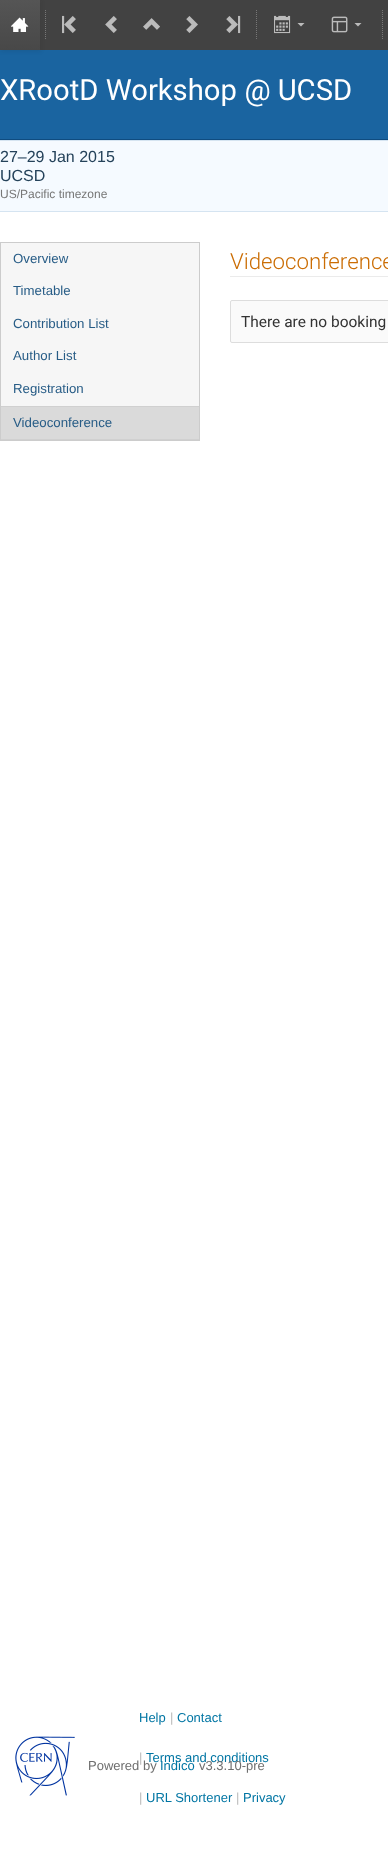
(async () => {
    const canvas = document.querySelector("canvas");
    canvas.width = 388;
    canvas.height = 1849;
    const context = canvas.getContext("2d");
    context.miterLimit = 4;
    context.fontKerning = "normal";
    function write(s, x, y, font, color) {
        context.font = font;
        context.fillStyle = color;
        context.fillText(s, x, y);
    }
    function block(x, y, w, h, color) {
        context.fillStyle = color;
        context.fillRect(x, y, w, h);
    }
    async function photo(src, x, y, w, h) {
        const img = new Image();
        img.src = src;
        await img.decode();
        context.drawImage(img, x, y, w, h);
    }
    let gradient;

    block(0, 0, 388, 1849, "rgb(255, 255, 255)");
    block(40, 0, 348, 50, "rgb(66, 66, 66)");
    block(0, 50, 388, 89, "rgb(26, 100, 160)");
    context.fillStyle = "rgba(20, 20, 20, 0.1)";
    context.filter = "blur(2px)";
    context.beginPath();
    context.rect(1, 1, 40, 50);
    context.fill();
    context.filter = "none";
    gradient = context.createLinearGradient(20, 0, 20, 50);
    gradient.addColorStop(0, "rgb(85, 85, 85)");
    gradient.addColorStop(1, "rgb(72, 72, 72)");
    context.fillStyle = gradient;
    context.fillRect(0, 0, 40, 50);
    await photo("media/1.png", 11, 17, 18, 15);
    context.beginPath();
    context.moveTo(45.5, 10);
    context.lineTo(45.5, 40);
    context.strokeStyle = "rgb(119, 119, 119)";
    context.setLineDash([1, 1]);
    context.stroke();
    await photo("media/2.png", 62, 15, 14, 19);
    await photo("media/3.png", 105, 16, 12, 17);
    await photo("media/4.png", 143, 18, 17, 12);
    await photo("media/5.png", 186, 16, 12, 17);
    await photo("media/6.png", 226, 15, 15, 19);
    context.beginPath();
    context.moveTo(256.5, 10);
    context.lineTo(256.5, 40);
    context.stroke();
    await photo("media/7.png", 274, 15, 17, 19);
    context.fillStyle = "rgb(187, 187, 187)";
    context.beginPath();
    context.moveTo(297.5, 23);
    context.lineTo(301, 26.5);
    context.lineTo(304.5, 23);
    context.closePath();
    context.fill();
    await photo("media/8.png", 331, 16, 17, 17);
    context.beginPath();
    context.moveTo(354.5, 23);
    context.lineTo(358, 26.5);
    context.lineTo(361.5, 23);
    context.closePath();
    context.fill();
    context.beginPath();
    context.moveTo(382.5, 10);
    context.lineTo(382.5, 40);
    context.stroke();
    block(0, 139, 388, 1, "rgb(15, 76, 128)");
    write("XRootD Workshop @ UCSD", 0, 100, "29.25px Roboto", "rgb(255, 255, 255)");
    block(0, 141, 388, 70, "rgb(245, 250, 255)");
    block(0, 140, 388, 1, "rgb(213, 228, 241)");
    block(0, 211, 388, 1, "rgb(213, 228, 241)");
    write("27–29 Jan 2015", 0, 162, "16px Liberation Sans", "rgb(36, 66, 90)");
    write("UCSD", 0, 181, "16px Liberation Sans", "rgb(36, 66, 90)");
    write("US/Pacific timezone", 0, 198, "12px Liberation Sans", "rgb(119, 119, 119)");
    block(1, 243, 198, 163, "rgb(246, 246, 246)");
    context.strokeStyle = "rgb(204, 204, 204)";
    context.setLineDash([]);
    context.strokeRect(0.5, 242.5, 199, 198);
    write("Overview", 13, 263, "13.25px 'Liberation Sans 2'", "rgb(39, 92, 134)");
    write("Timetable", 13, 295, "13.25px 'Liberation Sans 2'", "rgb(39, 92, 134)");
    write("Contribution List", 13, 328, "13.25px 'Liberation Sans 2'", "rgb(39, 92, 134)");
    write("Author List", 13, 360, "13.25px 'Liberation Sans 2'", "rgb(39, 92, 134)");
    write("Registration", 13, 393, "13.25px 'Liberation Sans 2'", "rgb(39, 92, 134)");
    block(1, 407, 198, 32, "rgb(218, 218, 218)");
    block(1, 406, 198, 1, "rgb(208, 208, 208)");
    block(1, 439, 198, 1, "rgb(208, 208, 208)");
    write("Videoconference", 13, 427, "13.25px 'Liberation Sans 2'", "rgb(39, 92, 134)");
    block(230, 276, 158, 1, "rgb(235, 235, 235)");
    write("Videoconference", 230, 269, "300 22.25px Roboto", "rgb(203, 109, 4)");
    context.fillStyle = "rgb(250, 250, 250)";
    context.beginPath();
    context.roundRect(230.5, 300.5, 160, 42, 1.5);
    context.fill();
    context.strokeStyle = "rgb(221, 221, 221)";
    context.stroke();
    write("There are no booking", 241, 327, "15.5px Roboto", "rgb(51, 51, 51)");
    write("Help", 139, 1722, "13px Liberation Sans", "rgb(0, 117, 163)");
    write("|", 170, 1722, "13px Liberation Sans", "rgb(187, 187, 187)");
    write("Contact", 177, 1722, "13px Liberation Sans", "rgb(0, 117, 163)");
    write("|", 139, 1762, "13px Liberation Sans", "rgb(187, 187, 187)");
    write("Terms and conditions", 146, 1762, "13px Liberation Sans", "rgb(0, 117, 163)");
    write("|", 139, 1802, "13px Liberation Sans", "rgb(187, 187, 187)");
    write("URL Shortener", 146, 1802, "13px Liberation Sans", "rgb(0, 117, 163)");
    write("|", 236, 1802, "13px Liberation Sans", "rgb(187, 187, 187)");
    write("Privacy", 243, 1802, "13px Liberation Sans", "rgb(0, 117, 163)");
    await photo("media/9.png", 15, 1736, 60, 60);
    write("Powered by", 88, 1770, "13px Liberation Sans", "rgb(110, 110, 110)");
    write("Indico", 160, 1770, "13px Liberation Sans", "rgb(0, 117, 163)");
    write("v3.3.10-pre", 199, 1770, "13px Liberation Sans", "rgb(110, 110, 110)");
})();
